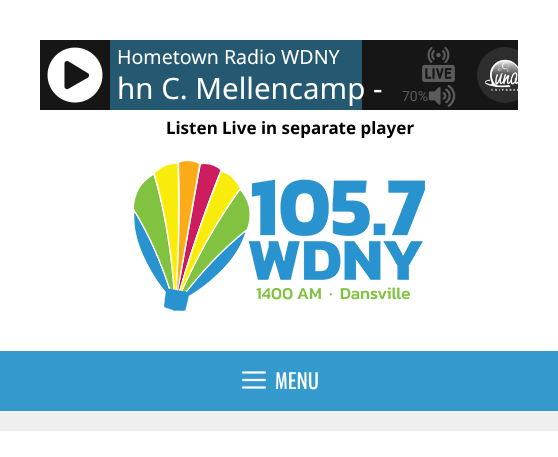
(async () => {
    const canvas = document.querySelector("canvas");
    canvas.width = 558;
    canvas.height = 457;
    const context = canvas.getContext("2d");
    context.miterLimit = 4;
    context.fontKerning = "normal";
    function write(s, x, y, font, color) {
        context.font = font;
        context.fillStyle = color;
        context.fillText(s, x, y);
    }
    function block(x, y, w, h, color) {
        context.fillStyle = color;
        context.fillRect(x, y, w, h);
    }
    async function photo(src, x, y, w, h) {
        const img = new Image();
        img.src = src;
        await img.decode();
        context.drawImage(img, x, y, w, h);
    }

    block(0, 0, 558, 457, "rgb(239, 239, 239)");
    block(0, 0, 558, 351, "rgb(255, 255, 255)");
    block(40, 40, 478, 70, "rgb(22, 22, 22)");
    await photo("media/1.png", 47, 47, 56, 56);
    block(110, 40, 252, 70, "rgb(37, 88, 113)");
    await photo("media/2.png", 422, 47, 33, 35);
    context.save();
    context.beginPath();
    context.rect(40, 40, 478, 101);
    context.clip();
    context.fillStyle = "rgb(45, 45, 45)";
    context.beginPath();
    context.arc(505, 75, 28, 0, Math.PI * 2);
    context.fill();
    context.restore();
    await photo("media/3.png", 485, 59, 33, 32);
    write("Hometown Radio WDNY", 117, 64, "19.6px Noto Sans", "rgb(255, 255, 255)");
    write("hn C. Mellencamp -", 117, 99, "29.5px Noto Sans", "rgb(255, 255, 255)");
    write("70%", 402, 101, "14px Roboto", "rgb(92, 92, 92)");
    await photo("media/4.png", 428, 85, 28, 22);
    write("Listen Live in separate player", 166, 134, "bold 17px Noto Sans", "rgb(0, 0, 0)");
    await photo("media/5.png", 134, 161, 291, 150);
    block(0, 351, 558, 60, "rgb(52, 153, 204)");
    await photo("media/6.png", 242, 371, 24, 18);
    write("MENU", 275, 389, "bold 24px BenchNine", "rgb(255, 255, 255)");
    block(0, 431, 558, 26, "rgb(255, 255, 255)");
})();
